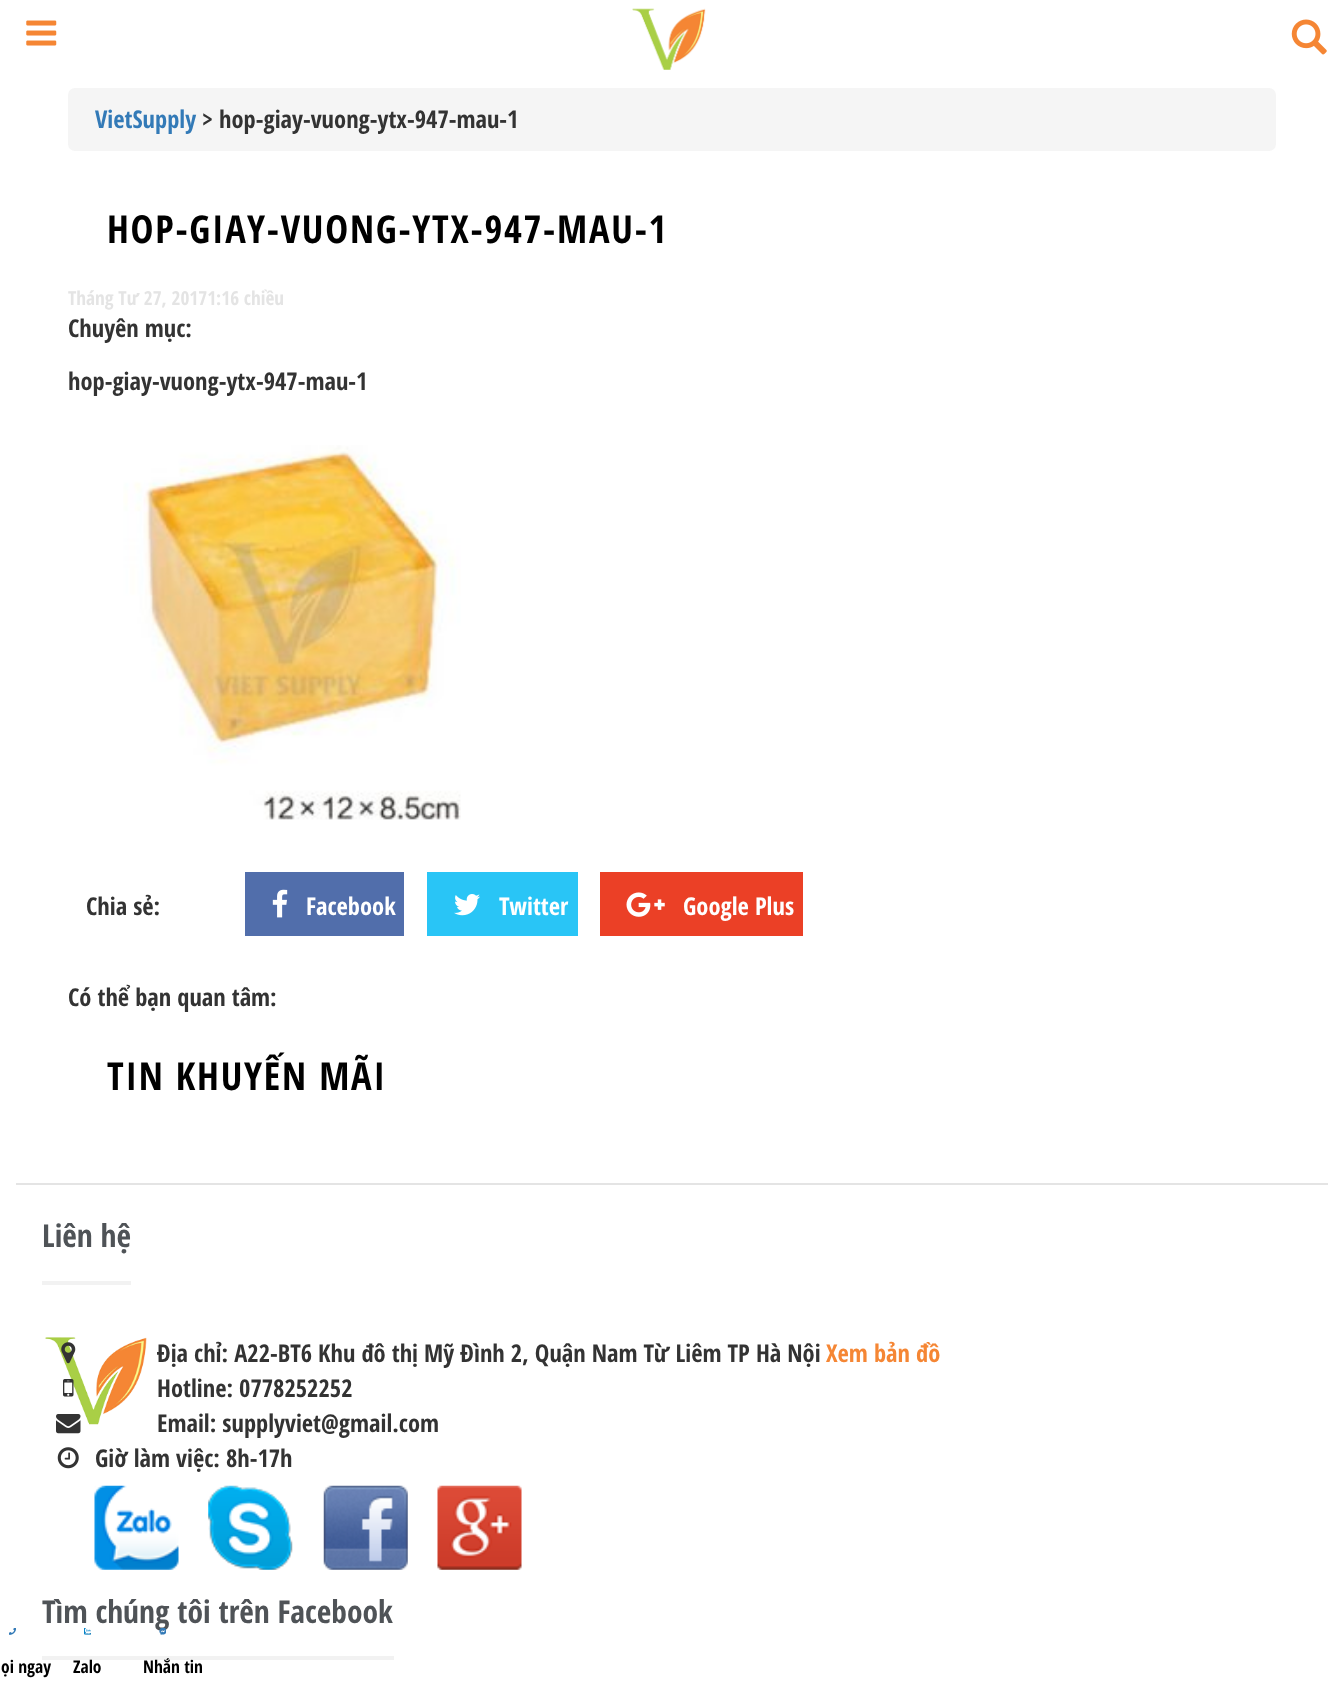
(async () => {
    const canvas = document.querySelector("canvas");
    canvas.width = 1343;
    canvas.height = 1688;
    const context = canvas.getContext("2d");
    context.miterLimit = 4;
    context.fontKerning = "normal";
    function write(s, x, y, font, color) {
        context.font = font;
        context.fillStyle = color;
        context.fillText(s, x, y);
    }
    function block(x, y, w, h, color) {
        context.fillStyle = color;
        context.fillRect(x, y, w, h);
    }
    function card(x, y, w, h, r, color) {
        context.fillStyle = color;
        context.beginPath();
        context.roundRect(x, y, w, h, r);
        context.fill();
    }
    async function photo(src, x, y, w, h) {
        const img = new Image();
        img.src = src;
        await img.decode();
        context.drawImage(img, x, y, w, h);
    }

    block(0, 0, 1343, 1688, "rgb(255, 255, 255)");
    await photo("media/1.png", 26, 20, 31, 26);
    await photo("media/2.png", 632, 8, 74, 62);
    await photo("media/3.png", 1291, 19, 36, 36);
    card(68, 88, 1208, 63, 7, "rgb(245, 245, 245)");
    write("VietSupply", 95, 128, "bold 24.5px Open Sans Condensed", "rgb(51, 122, 183)");
    write("> hop-giay-vuong-ytx-947-mau-1", 202, 128, "bold 24.5px Open Sans Condensed", "rgb(51, 51, 51)");
    context.letterSpacing = "1.75px";
    write("HOP-GIAY-VUONG-YTX-947-MAU-1", 107, 243, "bold 38.5px Open Sans Condensed", "rgb(0, 0, 0)");
    context.letterSpacing = "0px";
    write("Tháng Tư 27, 20171:16 chiều", 68, 305, "bold 19.25px Open Sans Condensed", "rgb(228, 228, 228)");
    write("Chuyên mục:", 68, 337, "bold 24.5px Open Sans Condensed", "rgb(51, 51, 51)");
    write("hop-giay-vuong-ytx-947-mau-1", 68, 390, "bold 24.5px Open Sans Condensed", "rgb(51, 51, 51)");
    await photo("media/4.png", 123, 445, 338, 375);
    write("Chia sẻ:", 86, 915, "bold 24.5px Open Sans Condensed", "rgb(51, 51, 51)");
    block(245, 872, 159, 64, "rgb(81, 110, 171)");
    await photo("media/5.png", 272, 889, 16, 29);
    write("Facebook", 306, 915, "bold 24.5px Open Sans Condensed", "rgb(255, 255, 255)");
    block(427, 872, 151, 64, "rgb(41, 197, 246)");
    await photo("media/6.png", 454, 894, 26, 22);
    write("Twitter", 499, 915, "bold 24.5px Open Sans Condensed", "rgb(255, 255, 255)");
    block(600, 872, 203, 64, "rgb(235, 64, 38)");
    await photo("media/7.png", 626, 892, 39, 25);
    write("Google Plus", 683, 915, "bold 24.5px Open Sans Condensed", "rgb(255, 255, 255)");
    write("Có thể bạn quan tâm:", 68, 1006, "bold 24.5px Open Sans Condensed", "rgb(51, 51, 51)");
    context.letterSpacing = "1.75px";
    write("TIN KHUYẾN MÃI", 107, 1090, "bold 38.5px Open Sans Condensed", "rgb(0, 0, 0)");
    block(16, 1183, 1312, 2, "rgb(228, 228, 228)");
    block(42, 1281, 89, 4, "rgb(242, 242, 242)");
    context.letterSpacing = "0px";
    write("Liên hệ", 42, 1247, "bold 31.5px Open Sans Condensed", "rgb(79, 83, 87)");
    await photo("media/8.png", 45, 1337, 102, 88);
    await photo("media/9.png", 61, 1342, 15, 22);
    write("Địa chỉ: A22-BT6 Khu đô thị Mỹ Đình 2, Quận Nam Từ Liêm TP Hà Nội", 157, 1362, "bold 24.5px Open Sans Condensed", "rgb(51, 51, 51)");
    write("Xem bản đồ", 826, 1362, "bold 24.5px Open Sans Condensed", "rgb(245, 134, 52)");
    await photo("media/10.png", 63, 1379, 11, 18);
    write("Hotline: 0778252252", 157, 1397, "bold 24.5px Open Sans Condensed", "rgb(51, 51, 51)");
    await photo("media/11.png", 56, 1414, 25, 20);
    write("Email: supplyviet@gmail.com", 157, 1432, "bold 24.5px Open Sans Condensed", "rgb(51, 51, 51)");
    await photo("media/12.png", 57, 1447, 22, 22);
    write("Giờ làm việc: 8h-17h", 95, 1467, "bold 24.5px Open Sans Condensed", "rgb(51, 51, 51)");
    await photo("media/13.png", 94, 1485, 85, 85);
    await photo("media/14.png", 208, 1485, 85, 85);
    await photo("media/15.png", 323, 1485, 85, 85);
    await photo("media/16.png", 437, 1485, 85, 85);
    block(42, 1656, 352, 4, "rgb(242, 242, 242)");
    write("Tìm chúng tôi trên Facebook", 42, 1623, "bold 31.5px Open Sans Condensed", "rgb(79, 83, 87)");
    await photo("media/17.png", 9, 1628, 7, 7);
    write("ọi ngay", 1, 1673, "bold 17.5px Open Sans Condensed", "rgb(0, 0, 0)");
    await photo("media/18.png", 84, 1628, 7, 7);
    write("Zalo", 73, 1673, "bold 17.5px Open Sans Condensed", "rgb(0, 0, 0)");
    await photo("media/19.png", 159, 1628, 7, 7);
    write("Nhắn tin", 143, 1673, "bold 17.5px Open Sans Condensed", "rgb(0, 0, 0)");
})();
